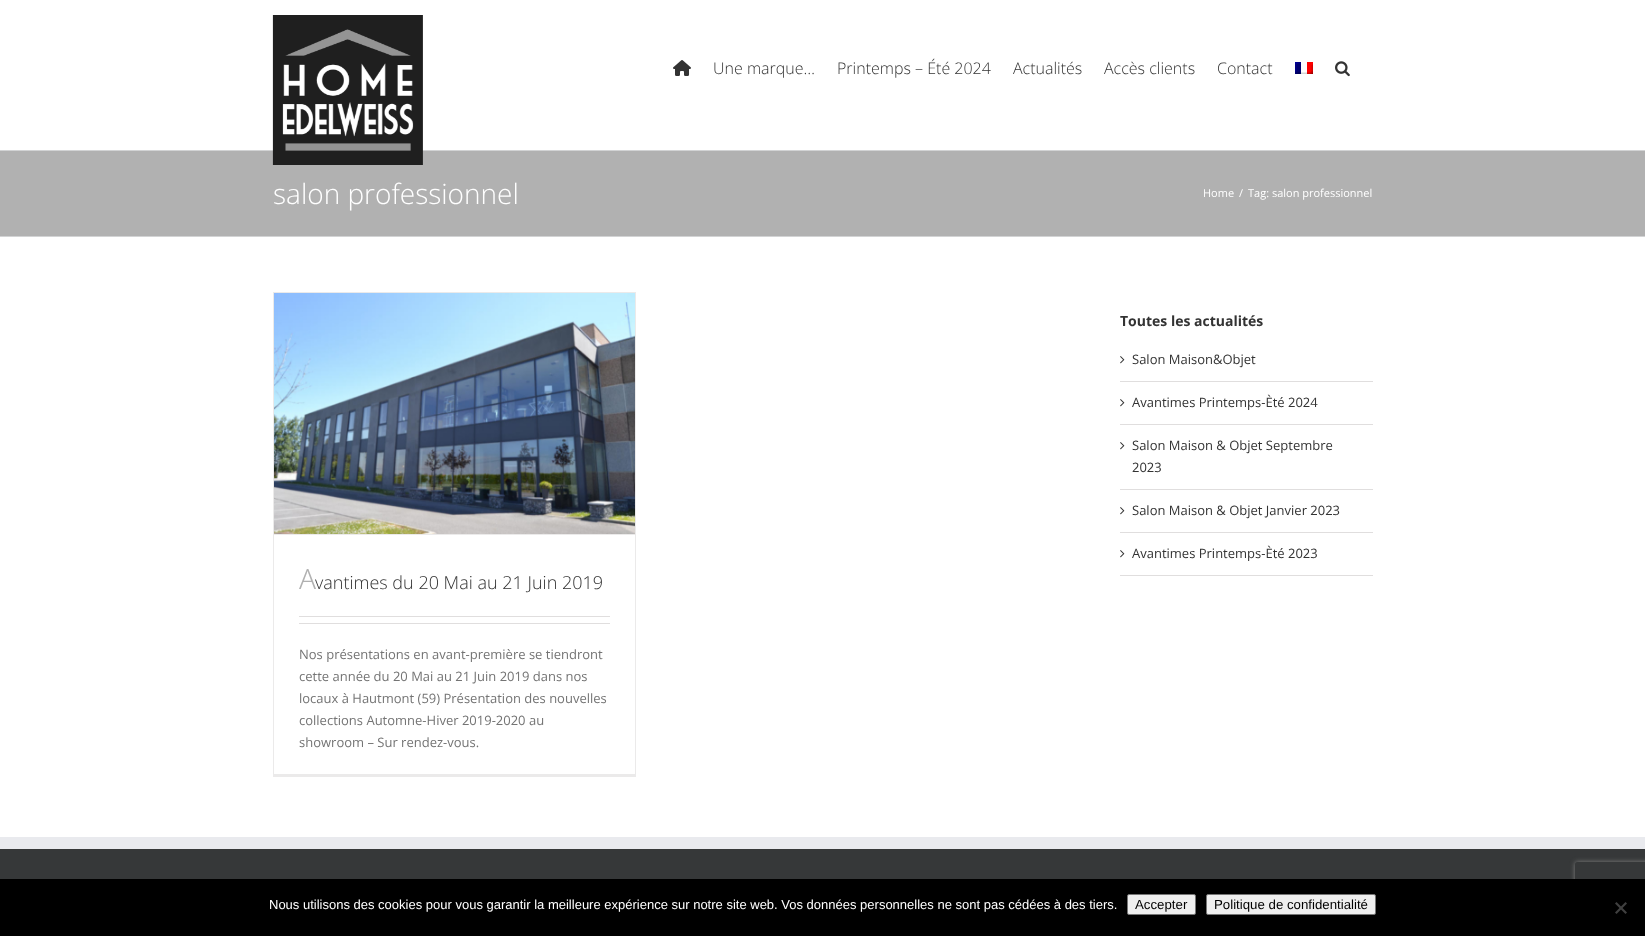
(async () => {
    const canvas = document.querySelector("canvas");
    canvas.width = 1645;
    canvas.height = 936;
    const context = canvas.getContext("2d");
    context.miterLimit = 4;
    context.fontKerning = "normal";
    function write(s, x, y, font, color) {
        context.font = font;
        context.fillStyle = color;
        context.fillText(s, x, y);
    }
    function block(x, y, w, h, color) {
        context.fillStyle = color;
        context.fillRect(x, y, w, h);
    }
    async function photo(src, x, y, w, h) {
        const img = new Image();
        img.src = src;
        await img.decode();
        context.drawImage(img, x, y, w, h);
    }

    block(0, 0, 1645, 936, "rgb(255, 255, 255)");
    block(0, 151, 1645, 85, "rgb(177, 177, 177)");
    block(0, 150, 1645, 1, "rgb(210, 211, 212)");
    await photo("media/1.png", 272, 15, 151, 150);
    await photo("media/2.png", 673, 60, 18, 16);
    write("Une marque…", 713, 74, "300 16px Open Sans", "rgb(51, 51, 51)");
    write("Printemps – Été 2024", 837, 74, "300 16px Open Sans", "rgb(51, 51, 51)");
    write("Actualités", 1013, 74, "300 16px Open Sans", "rgb(51, 51, 51)");
    write("Accès clients", 1104, 74, "300 16px Open Sans", "rgb(51, 51, 51)");
    write("Contact", 1217, 74, "300 16px Open Sans", "rgb(51, 51, 51)");
    await photo("media/3.png", 1295, 62, 18, 12);
    await photo("media/4.png", 1335, 61, 15, 16);
    block(0, 236, 1645, 1, "rgb(210, 211, 212)");
    write("salon professionnel", 273, 204, "300 28px Open Sans", "rgb(255, 255, 255)");
    write("Home", 1203, 197, "11px Open Sans", "rgb(255, 255, 255)");
    write("/", 1239, 197, "11px Open Sans", "rgb(255, 255, 255)");
    write("Tag: salon professionnel", 1248, 197, "11px Open Sans", "rgb(255, 255, 255)");
    write("Toutes les actualités", 1120, 326, "bold 14px Open Sans", "rgb(51, 51, 51)");
    block(1120, 381, 253, 1, "rgb(224, 222, 222)");
    await photo("media/5.png", 1120, 356, 5, 8);
    write("Salon Maison&Objet", 1132, 364, "13px Open Sans", "rgb(51, 51, 51)");
    block(1120, 424, 253, 1, "rgb(224, 222, 222)");
    await photo("media/5.png", 1120, 399, 5, 8);
    write("Avantimes Printemps-Èté 2024", 1132, 407, "13px Open Sans", "rgb(51, 51, 51)");
    block(1120, 489, 253, 1, "rgb(224, 222, 222)");
    await photo("media/5.png", 1120, 442, 5, 8);
    write("Salon Maison & Objet Septembre", 1132, 450, "13px Open Sans", "rgb(51, 51, 51)");
    write("2023", 1132, 472, "13px Open Sans", "rgb(51, 51, 51)");
    block(1120, 532, 253, 1, "rgb(224, 222, 222)");
    await photo("media/5.png", 1120, 507, 5, 8);
    write("Salon Maison & Objet Janvier 2023", 1132, 515, "13px Open Sans", "rgb(51, 51, 51)");
    block(1120, 575, 253, 1, "rgb(224, 222, 222)");
    await photo("media/5.png", 1120, 550, 5, 8);
    write("Avantimes Printemps-Èté 2023", 1132, 558, "13px Open Sans", "rgb(51, 51, 51)");
    block(273, 292, 363, 1, "rgb(235, 234, 234)");
    block(635, 292, 1, 485, "rgb(235, 234, 234)");
    block(273, 774, 363, 3, "rgb(235, 234, 234)");
    block(273, 292, 1, 485, "rgb(235, 234, 234)");
    block(274, 534, 361, 1, "rgb(235, 234, 234)");
    await photo("media/6.png", 274, 293, 361, 241);
    write("A", 299, 589, "300 28px Noto Sans", "rgb(177, 177, 177)");
    write("vantimes du 20 Mai au 21 Juin 2019", 315, 589, "300 18px Open Sans", "rgb(51, 51, 51)");
    block(299, 616, 311, 1, "rgb(224, 222, 222)");
    block(299, 623, 311, 1, "rgb(224, 222, 222)");
    write("Nos présentations en avant-première se tiendront", 299, 659, "13px Open Sans", "rgb(116, 116, 116)");
    write("cette année du 20 Mai au 21 Juin 2019 dans nos", 299, 681, "13px Open Sans", "rgb(116, 116, 116)");
    write("locaux à Hautmont (59) Présentation des nouvelles", 299, 703, "13px Open Sans", "rgb(116, 116, 116)");
    write("collections Automne-Hiver 2019-2020 au", 299, 725, "13px Open Sans", "rgb(116, 116, 116)");
    write("showroom – Sur rendez-vous.", 299, 747, "13px Open Sans", "rgb(116, 116, 116)");
    block(0, 849, 1645, 30, "rgb(54, 56, 57)");
    block(0, 837, 1645, 12, "rgb(233, 234, 238)");
    context.save();
    context.beginPath();
    context.moveTo(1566, 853);
    context.lineTo(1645, 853);
    context.lineTo(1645, 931);
    context.lineTo(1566, 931);
    context.closePath();
    context.moveTo(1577, 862);
    context.lineTo(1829, 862);
    context.bezierCurveTo(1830, 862, 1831, 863, 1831, 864);
    context.lineTo(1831, 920);
    context.bezierCurveTo(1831, 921, 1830, 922, 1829, 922);
    context.lineTo(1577, 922);
    context.bezierCurveTo(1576, 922, 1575, 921, 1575, 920);
    context.lineTo(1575, 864);
    context.bezierCurveTo(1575, 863, 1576, 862, 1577, 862);
    context.closePath();
    context.clip("evenodd");
    context.fillStyle = "rgb(128, 128, 128)";
    context.filter = "blur(2.5px)";
    context.beginPath();
    context.roundRect(1575, 862, 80, 60, 2);
    context.fill();
    context.filter = "none";
    context.restore();
    block(0, 879, 1645, 57, "rgb(0, 0, 0)");
    write("Nous utilisons des cookies pour vous garantir la meilleure expérience sur notre site web. Vos données personnelles ne sont pas cédées à des tiers.", 269, 909, "13px Liberation Sans", "rgb(255, 255, 255)");
    context.fillStyle = "rgb(239, 239, 239)";
    context.beginPath();
    context.roundRect(1127.5, 894.5, 68, 20, 1.5);
    context.fill();
    context.strokeStyle = "rgb(118, 118, 118)";
    context.stroke();
    write("Accepter", 1135, 909, "13.25px Liberation Sans", "rgb(0, 0, 0)");
    context.fillStyle = "rgb(239, 239, 239)";
    context.beginPath();
    context.roundRect(1206.5, 894.5, 169, 20, 1.5);
    context.fill();
    context.stroke();
    write("Politique de confidentialité", 1214, 909, "13.25px Liberation Sans", "rgb(0, 0, 0)");
    context.fillStyle = "rgb(64, 64, 64)";
    context.beginPath();
    context.moveTo(1625.5, 902);
    context.lineTo(1627, 903.5);
    context.lineTo(1616.5, 914);
    context.lineTo(1615, 912.5);
    context.closePath();
    context.fill();
    context.beginPath();
    context.moveTo(1615, 903.5);
    context.lineTo(1616.5, 902);
    context.lineTo(1627, 912.5);
    context.lineTo(1625.5, 914);
    context.closePath();
    context.fill();
})();
